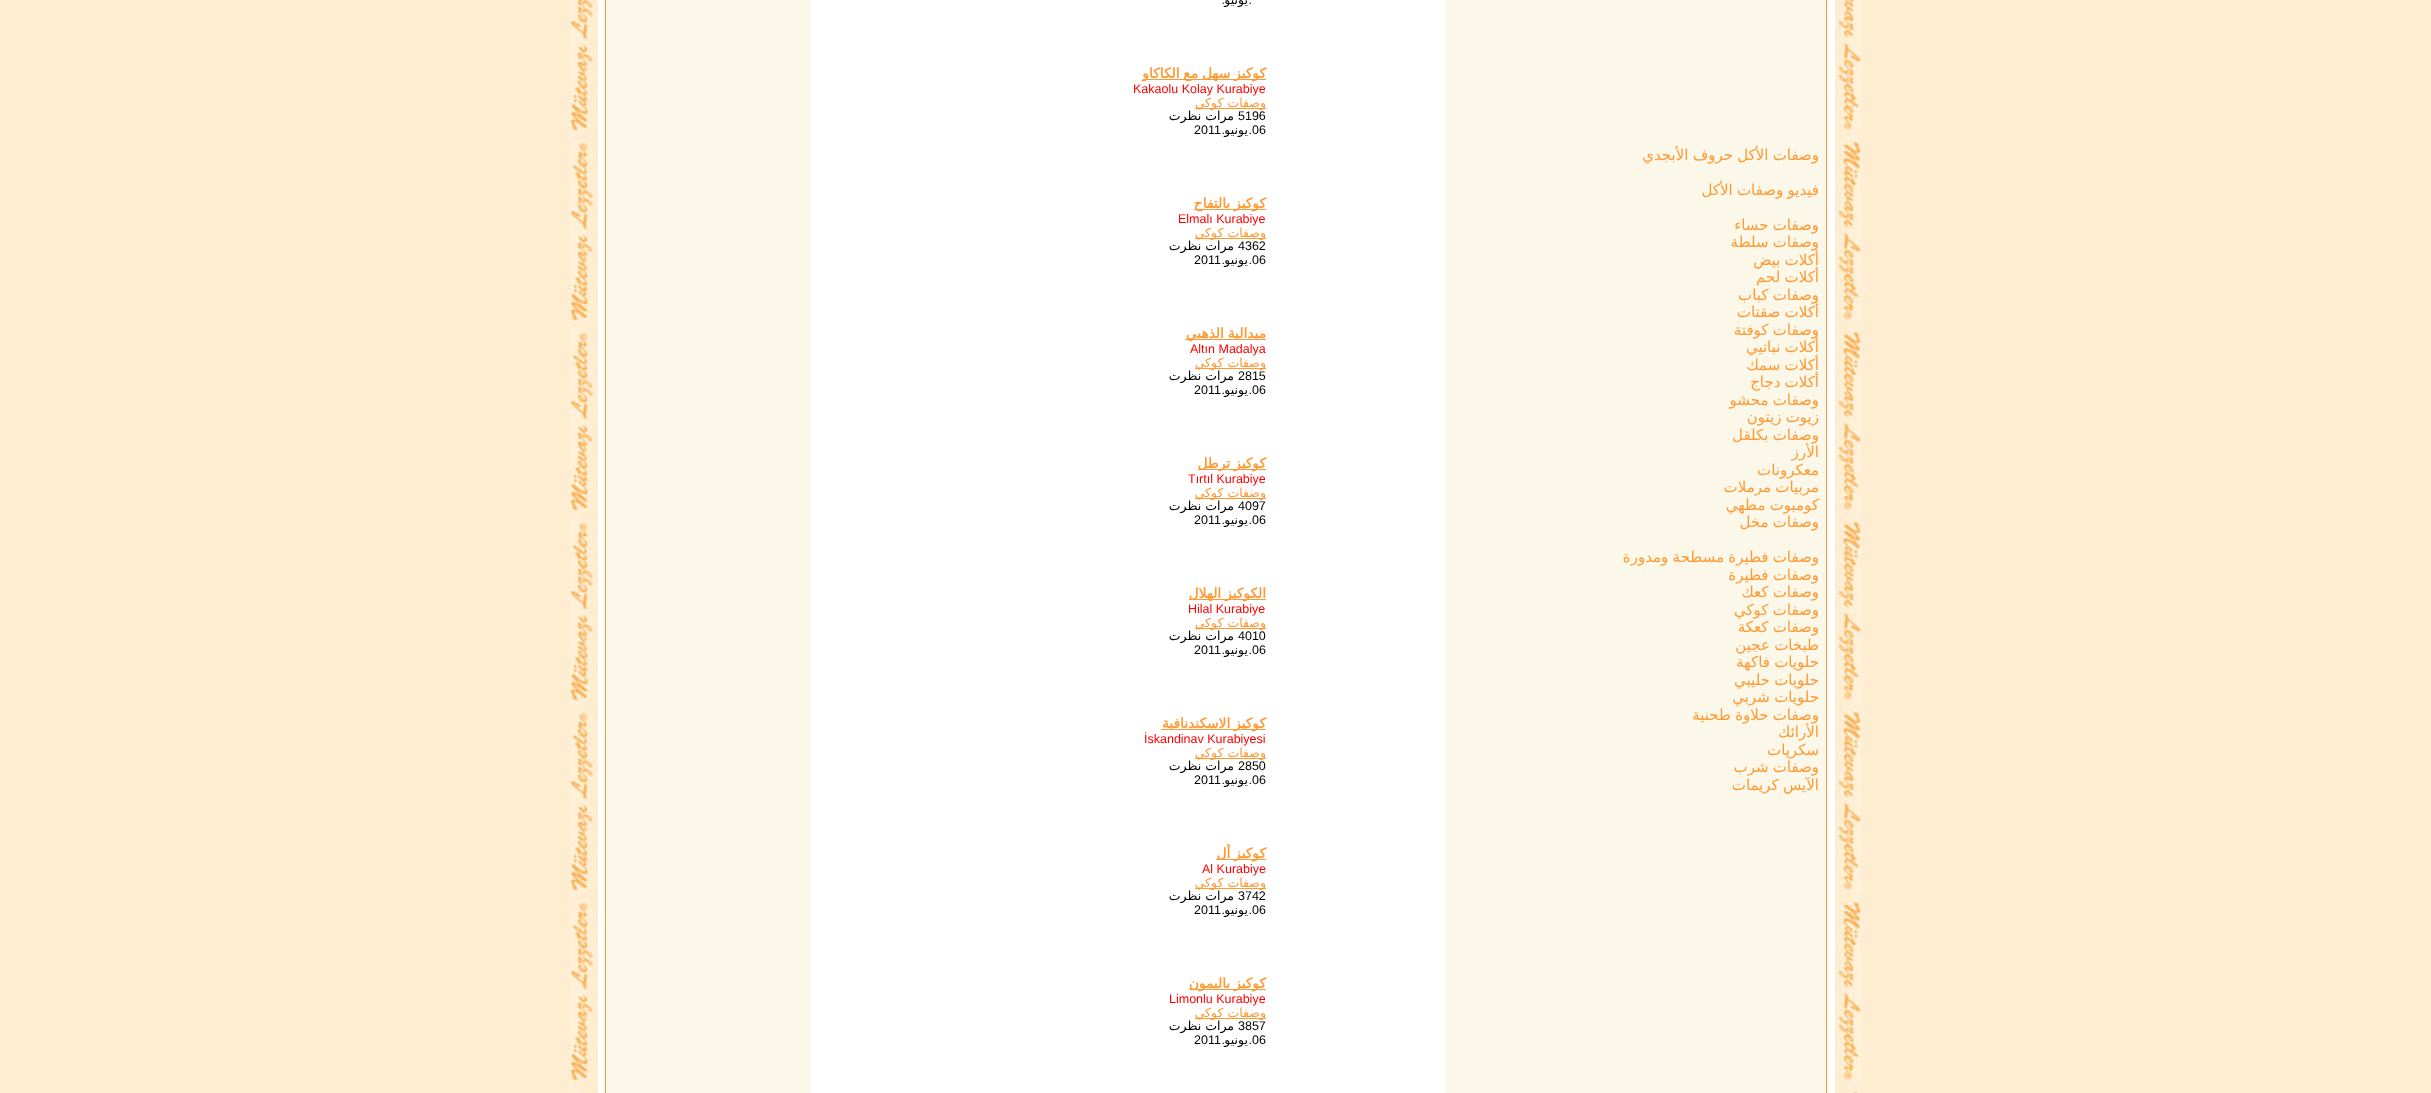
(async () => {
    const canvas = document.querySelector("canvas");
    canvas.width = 2431;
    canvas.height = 1093;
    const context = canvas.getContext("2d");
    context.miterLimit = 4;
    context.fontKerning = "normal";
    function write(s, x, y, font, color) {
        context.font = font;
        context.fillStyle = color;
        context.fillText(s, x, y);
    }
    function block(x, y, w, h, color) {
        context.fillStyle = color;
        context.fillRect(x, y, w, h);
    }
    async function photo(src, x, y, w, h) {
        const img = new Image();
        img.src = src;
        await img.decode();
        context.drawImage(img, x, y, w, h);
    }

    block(0, 0, 2431, 1093, "rgb(254, 237, 209)");
    await photo("media/1.png", 566, 0, 1301, 1093);
    block(598, 0, 1237, 1093, "rgb(255, 255, 255)");
    block(1826, 0, 1, 1093, "rgb(255, 153, 51)");
    block(605, 0, 1, 1093, "rgb(255, 153, 51)");
    block(1446, 0, 380, 1093, "rgb(252, 248, 233)");
    context.wordSpacing = "-0.5px";
    context.direction = "rtl";
    write("وصفات الأكل حروف الأبجدي", 1819, 160, "15px DejaVu Sans", "rgb(255, 153, 51)");
    write("فيديو وصفات الأكل", 1819, 195, "15px DejaVu Sans", "rgb(255, 153, 51)");
    write("وصفات حساء", 1819, 230, "15px DejaVu Sans", "rgb(255, 153, 51)");
    write("وصفات سلطة", 1819, 247, "15px DejaVu Sans", "rgb(255, 153, 51)");
    write("أكلات بيض", 1819, 265, "15px DejaVu Sans", "rgb(255, 153, 51)");
    write("أكلات لحم", 1819, 282, "15px DejaVu Sans", "rgb(255, 153, 51)");
    write("وصفات كباب", 1819, 300, "15px DejaVu Sans", "rgb(255, 153, 51)");
    write("أكلات صقتات", 1819, 317, "15px DejaVu Sans", "rgb(255, 153, 51)");
    write("وصفات كوفتة", 1819, 335, "15px DejaVu Sans", "rgb(255, 153, 51)");
    write("أكلات نباتيي", 1819, 352, "15px DejaVu Sans", "rgb(255, 153, 51)");
    write("أكلات سمك", 1819, 370, "15px DejaVu Sans", "rgb(255, 153, 51)");
    write("أكلات دجاج", 1819, 387, "15px DejaVu Sans", "rgb(255, 153, 51)");
    write("وصفات محشو", 1819, 405, "15px DejaVu Sans", "rgb(255, 153, 51)");
    write("زيوت زيتون", 1819, 422, "15px DejaVu Sans", "rgb(255, 153, 51)");
    write("وصفات بكلقل", 1819, 440, "15px DejaVu Sans", "rgb(255, 153, 51)");
    context.wordSpacing = "0px";
    write("الأرز", 1819, 457, "15px DejaVu Sans", "rgb(255, 153, 51)");
    write("معكرونات", 1819, 475, "15px DejaVu Sans", "rgb(255, 153, 51)");
    context.wordSpacing = "-0.5px";
    write("مربيات مرملات", 1819, 492, "15px DejaVu Sans", "rgb(255, 153, 51)");
    write("كومبوت مطهي", 1819, 510, "15px DejaVu Sans", "rgb(255, 153, 51)");
    write("وصفات مخل", 1819, 527, "15px DejaVu Sans", "rgb(255, 153, 51)");
    write("وصفات فطيرة مسطحة ومدورة", 1819, 562, "15px DejaVu Sans", "rgb(255, 153, 51)");
    write("وصفات فطيرة", 1819, 580, "15px DejaVu Sans", "rgb(255, 153, 51)");
    write("وصفات كعك", 1819, 597, "15px DejaVu Sans", "rgb(255, 153, 51)");
    write("وصفات كوكي", 1819, 615, "15px DejaVu Sans", "rgb(255, 153, 51)");
    write("وصفات كعكة", 1819, 632, "15px DejaVu Sans", "rgb(255, 153, 51)");
    write("طبخات عجين", 1819, 650, "15px DejaVu Sans", "rgb(255, 153, 51)");
    write("حلويات فاكهة", 1819, 667, "15px DejaVu Sans", "rgb(255, 153, 51)");
    write("حلويات حليبي", 1819, 685, "15px DejaVu Sans", "rgb(255, 153, 51)");
    write("حلويات شربي", 1819, 702, "15px DejaVu Sans", "rgb(255, 153, 51)");
    write("وصفات حلاوة طحنية", 1819, 720, "15px DejaVu Sans", "rgb(255, 153, 51)");
    context.wordSpacing = "0px";
    write("الأرائك", 1819, 737, "15px DejaVu Sans", "rgb(255, 153, 51)");
    write("سكريات", 1819, 755, "15px DejaVu Sans", "rgb(255, 153, 51)");
    context.wordSpacing = "-0.5px";
    write("وصفات شرب", 1819, 772, "15px DejaVu Sans", "rgb(255, 153, 51)");
    write("الآيس كريمات", 1819, 790, "15px DejaVu Sans", "rgb(255, 153, 51)");
    context.wordSpacing = "0px";
    write(".", 1252, 4, "12.5px Liberation Sans", "rgb(0, 0, 0)");
    write("يونيو", 1248, 4, "12.5px DejaVu Sans", "rgb(0, 0, 0)");
    write(".", 1225, 4, "12.5px Liberation Sans", "rgb(0, 0, 0)");
    block(1143, 79, 123, 1, "rgb(255, 153, 51)");
    context.wordSpacing = "-0.5px";
    write("كوكيز سهل مع الكاكاو", 1266, 78, "bold 13.75px DejaVu Sans", "rgb(255, 153, 51)");
    context.wordSpacing = "0px";
    context.direction = "ltr";
    write("Kakaolu Kolay Kurabiye", 1133, 93, "12.5px Liberation Sans", "rgb(255, 0, 0)");
    block(1195, 108, 71, 1, "rgb(255, 153, 51)");
    context.direction = "rtl";
    write("وصفات كوكي", 1266, 107, "12.5px DejaVu Sans", "rgb(255, 153, 51)");
    context.direction = "ltr";
    write("5196", 1238, 120, "12.5px Liberation Sans", "rgb(0, 0, 0)");
    context.direction = "rtl";
    write("مرات نظرت", 1234, 120, "12.5px DejaVu Sans", "rgb(0, 0, 0)");
    context.direction = "ltr";
    write("06", 1252, 134, "12.5px Liberation Sans", "rgb(0, 0, 0)");
    context.direction = "rtl";
    write(".", 1252, 134, "12.5px Liberation Sans", "rgb(0, 0, 0)");
    write("يونيو", 1248, 134, "12.5px DejaVu Sans", "rgb(0, 0, 0)");
    write(".", 1225, 134, "12.5px Liberation Sans", "rgb(0, 0, 0)");
    context.direction = "ltr";
    write("2011", 1194, 134, "12.5px Liberation Sans", "rgb(0, 0, 0)");
    block(1194, 209, 72, 1, "rgb(255, 153, 51)");
    context.wordSpacing = "-0.5px";
    context.direction = "rtl";
    write("كوكيز بالتفاح", 1266, 208, "bold 13.75px DejaVu Sans", "rgb(255, 153, 51)");
    context.wordSpacing = "0px";
    context.direction = "ltr";
    write("Elmalı Kurabiye", 1178, 223, "12.5px Liberation Sans", "rgb(255, 0, 0)");
    block(1195, 238, 71, 1, "rgb(255, 153, 51)");
    context.direction = "rtl";
    write("وصفات كوكي", 1266, 237, "12.5px DejaVu Sans", "rgb(255, 153, 51)");
    context.direction = "ltr";
    write("4362", 1238, 250, "12.5px Liberation Sans", "rgb(0, 0, 0)");
    context.direction = "rtl";
    write("مرات نظرت", 1234, 250, "12.5px DejaVu Sans", "rgb(0, 0, 0)");
    context.direction = "ltr";
    write("06", 1252, 264, "12.5px Liberation Sans", "rgb(0, 0, 0)");
    context.direction = "rtl";
    write(".", 1252, 264, "12.5px Liberation Sans", "rgb(0, 0, 0)");
    write("يونيو", 1248, 264, "12.5px DejaVu Sans", "rgb(0, 0, 0)");
    write(".", 1225, 264, "12.5px Liberation Sans", "rgb(0, 0, 0)");
    context.direction = "ltr";
    write("2011", 1194, 264, "12.5px Liberation Sans", "rgb(0, 0, 0)");
    block(1185, 339, 81, 1, "rgb(255, 153, 51)");
    context.wordSpacing = "-0.5px";
    context.direction = "rtl";
    write("ميدالية الذهبي", 1266, 338, "bold 13.75px DejaVu Sans", "rgb(255, 153, 51)");
    context.wordSpacing = "0px";
    context.direction = "ltr";
    write("Altın Madalya", 1190, 353, "12.5px Liberation Sans", "rgb(255, 0, 0)");
    block(1195, 368, 71, 1, "rgb(255, 153, 51)");
    context.direction = "rtl";
    write("وصفات كوكي", 1266, 367, "12.5px DejaVu Sans", "rgb(255, 153, 51)");
    context.direction = "ltr";
    write("2815", 1238, 380, "12.5px Liberation Sans", "rgb(0, 0, 0)");
    context.direction = "rtl";
    write("مرات نظرت", 1234, 380, "12.5px DejaVu Sans", "rgb(0, 0, 0)");
    context.direction = "ltr";
    write("06", 1252, 394, "12.5px Liberation Sans", "rgb(0, 0, 0)");
    context.direction = "rtl";
    write(".", 1252, 394, "12.5px Liberation Sans", "rgb(0, 0, 0)");
    write("يونيو", 1248, 394, "12.5px DejaVu Sans", "rgb(0, 0, 0)");
    write(".", 1225, 394, "12.5px Liberation Sans", "rgb(0, 0, 0)");
    context.direction = "ltr";
    write("2011", 1194, 394, "12.5px Liberation Sans", "rgb(0, 0, 0)");
    block(1198, 469, 68, 1, "rgb(255, 153, 51)");
    context.wordSpacing = "-0.5px";
    context.direction = "rtl";
    write("كوكيز ترطل", 1266, 468, "bold 13.75px DejaVu Sans", "rgb(255, 153, 51)");
    context.wordSpacing = "0px";
    context.direction = "ltr";
    write("Tırtıl Kurabiye", 1188, 483, "12.5px Liberation Sans", "rgb(255, 0, 0)");
    block(1195, 498, 71, 1, "rgb(255, 153, 51)");
    context.direction = "rtl";
    write("وصفات كوكي", 1266, 497, "12.5px DejaVu Sans", "rgb(255, 153, 51)");
    context.direction = "ltr";
    write("4097", 1238, 510, "12.5px Liberation Sans", "rgb(0, 0, 0)");
    context.direction = "rtl";
    write("مرات نظرت", 1234, 510, "12.5px DejaVu Sans", "rgb(0, 0, 0)");
    context.direction = "ltr";
    write("06", 1252, 524, "12.5px Liberation Sans", "rgb(0, 0, 0)");
    context.direction = "rtl";
    write(".", 1252, 524, "12.5px Liberation Sans", "rgb(0, 0, 0)");
    write("يونيو", 1248, 524, "12.5px DejaVu Sans", "rgb(0, 0, 0)");
    write(".", 1225, 524, "12.5px Liberation Sans", "rgb(0, 0, 0)");
    context.direction = "ltr";
    write("2011", 1194, 524, "12.5px Liberation Sans", "rgb(0, 0, 0)");
    block(1189, 599, 77, 1, "rgb(255, 153, 51)");
    context.wordSpacing = "-0.5px";
    context.direction = "rtl";
    write("الكوكيز الهلال", 1266, 598, "bold 13.75px DejaVu Sans", "rgb(255, 153, 51)");
    context.wordSpacing = "0px";
    context.direction = "ltr";
    write("Hilal Kurabiye", 1188, 613, "12.5px Liberation Sans", "rgb(255, 0, 0)");
    block(1195, 628, 71, 1, "rgb(255, 153, 51)");
    context.direction = "rtl";
    write("وصفات كوكي", 1266, 627, "12.5px DejaVu Sans", "rgb(255, 153, 51)");
    context.direction = "ltr";
    write("4010", 1238, 640, "12.5px Liberation Sans", "rgb(0, 0, 0)");
    context.direction = "rtl";
    write("مرات نظرت", 1234, 640, "12.5px DejaVu Sans", "rgb(0, 0, 0)");
    context.direction = "ltr";
    write("06", 1252, 654, "12.5px Liberation Sans", "rgb(0, 0, 0)");
    context.direction = "rtl";
    write(".", 1252, 654, "12.5px Liberation Sans", "rgb(0, 0, 0)");
    write("يونيو", 1248, 654, "12.5px DejaVu Sans", "rgb(0, 0, 0)");
    write(".", 1225, 654, "12.5px Liberation Sans", "rgb(0, 0, 0)");
    context.direction = "ltr";
    write("2011", 1194, 654, "12.5px Liberation Sans", "rgb(0, 0, 0)");
    block(1161, 729, 105, 1, "rgb(255, 153, 51)");
    context.wordSpacing = "-0.5px";
    context.direction = "rtl";
    write("كوكيز الاسكندنافية", 1266, 728, "bold 13.75px DejaVu Sans", "rgb(255, 153, 51)");
    context.wordSpacing = "0px";
    context.direction = "ltr";
    write("İskandinav Kurabiyesi", 1144, 743, "12.5px Liberation Sans", "rgb(255, 0, 0)");
    block(1195, 758, 71, 1, "rgb(255, 153, 51)");
    context.direction = "rtl";
    write("وصفات كوكي", 1266, 757, "12.5px DejaVu Sans", "rgb(255, 153, 51)");
    context.direction = "ltr";
    write("2850", 1238, 770, "12.5px Liberation Sans", "rgb(0, 0, 0)");
    context.direction = "rtl";
    write("مرات نظرت", 1234, 770, "12.5px DejaVu Sans", "rgb(0, 0, 0)");
    context.direction = "ltr";
    write("06", 1252, 784, "12.5px Liberation Sans", "rgb(0, 0, 0)");
    context.direction = "rtl";
    write(".", 1252, 784, "12.5px Liberation Sans", "rgb(0, 0, 0)");
    write("يونيو", 1248, 784, "12.5px DejaVu Sans", "rgb(0, 0, 0)");
    write(".", 1225, 784, "12.5px Liberation Sans", "rgb(0, 0, 0)");
    context.direction = "ltr";
    write("2011", 1194, 784, "12.5px Liberation Sans", "rgb(0, 0, 0)");
    block(1216, 859, 50, 1, "rgb(255, 153, 51)");
    context.wordSpacing = "-0.5px";
    context.direction = "rtl";
    write("كوكيز أل", 1266, 858, "bold 13.75px DejaVu Sans", "rgb(255, 153, 51)");
    context.wordSpacing = "0px";
    context.direction = "ltr";
    write("Al Kurabiye", 1202, 873, "12.5px Liberation Sans", "rgb(255, 0, 0)");
    block(1195, 888, 71, 1, "rgb(255, 153, 51)");
    context.direction = "rtl";
    write("وصفات كوكي", 1266, 887, "12.5px DejaVu Sans", "rgb(255, 153, 51)");
    context.direction = "ltr";
    write("3742", 1238, 900, "12.5px Liberation Sans", "rgb(0, 0, 0)");
    context.direction = "rtl";
    write("مرات نظرت", 1234, 900, "12.5px DejaVu Sans", "rgb(0, 0, 0)");
    context.direction = "ltr";
    write("06", 1252, 914, "12.5px Liberation Sans", "rgb(0, 0, 0)");
    context.direction = "rtl";
    write(".", 1252, 914, "12.5px Liberation Sans", "rgb(0, 0, 0)");
    write("يونيو", 1248, 914, "12.5px DejaVu Sans", "rgb(0, 0, 0)");
    write(".", 1225, 914, "12.5px Liberation Sans", "rgb(0, 0, 0)");
    context.direction = "ltr";
    write("2011", 1194, 914, "12.5px Liberation Sans", "rgb(0, 0, 0)");
    block(1189, 989, 77, 1, "rgb(255, 153, 51)");
    context.wordSpacing = "-0.5px";
    context.direction = "rtl";
    write("كوكيز باليمون", 1266, 988, "bold 13.75px DejaVu Sans", "rgb(255, 153, 51)");
    context.wordSpacing = "0px";
    context.direction = "ltr";
    write("Limonlu Kurabiye", 1169, 1003, "12.5px Liberation Sans", "rgb(255, 0, 0)");
    block(1195, 1018, 71, 1, "rgb(255, 153, 51)");
    context.direction = "rtl";
    write("وصفات كوكي", 1266, 1017, "12.5px DejaVu Sans", "rgb(255, 153, 51)");
    context.direction = "ltr";
    write("3857", 1238, 1030, "12.5px Liberation Sans", "rgb(0, 0, 0)");
    context.direction = "rtl";
    write("مرات نظرت", 1234, 1030, "12.5px DejaVu Sans", "rgb(0, 0, 0)");
    context.direction = "ltr";
    write("06", 1252, 1044, "12.5px Liberation Sans", "rgb(0, 0, 0)");
    context.direction = "rtl";
    write(".", 1252, 1044, "12.5px Liberation Sans", "rgb(0, 0, 0)");
    write("يونيو", 1248, 1044, "12.5px DejaVu Sans", "rgb(0, 0, 0)");
    write(".", 1225, 1044, "12.5px Liberation Sans", "rgb(0, 0, 0)");
    context.direction = "ltr";
    write("2011", 1194, 1044, "12.5px Liberation Sans", "rgb(0, 0, 0)");
    block(606, 0, 205, 1093, "rgb(252, 248, 233)");
})();
